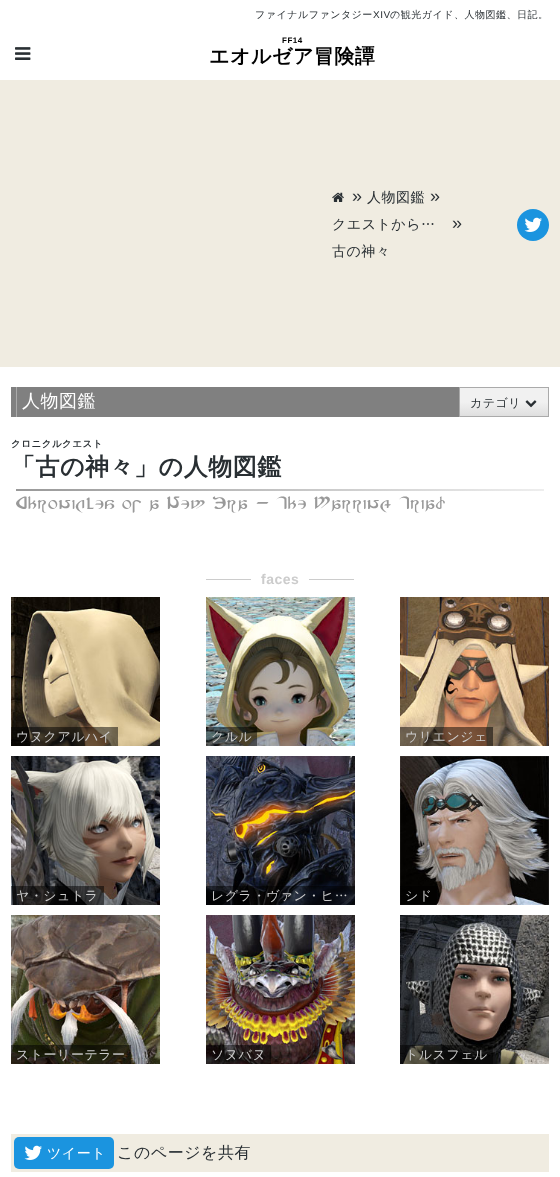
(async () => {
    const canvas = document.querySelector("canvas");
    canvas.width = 560;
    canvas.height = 1177;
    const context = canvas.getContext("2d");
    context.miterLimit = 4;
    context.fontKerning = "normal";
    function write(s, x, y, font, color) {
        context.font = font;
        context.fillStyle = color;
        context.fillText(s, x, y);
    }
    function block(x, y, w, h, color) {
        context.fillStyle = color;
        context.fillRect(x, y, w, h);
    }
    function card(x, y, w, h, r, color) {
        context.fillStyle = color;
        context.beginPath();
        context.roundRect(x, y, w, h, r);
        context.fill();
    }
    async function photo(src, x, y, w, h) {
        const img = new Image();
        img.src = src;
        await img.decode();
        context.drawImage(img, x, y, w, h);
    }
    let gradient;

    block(0, 0, 560, 1177, "rgb(255, 255, 255)");
    context.letterSpacing = "0.5px";
    write("ファイナルファンタジー", 255, 18, "500 10px WenQuanYi Zen Hei", "rgb(41, 47, 51)");
    write("XIV", 373, 18, "10px Liberation Sans", "rgb(41, 47, 51)");
    write("の観光ガイド、人物図鑑、日記。", 390, 18, "500 10px WenQuanYi Zen Hei", "rgb(41, 47, 51)");
    await photo("media/1.png", 15, 47, 16, 13);
    write("FF14", 282, 43, "bold 8px Liberation Sans", "rgb(0, 0, 0)");
    write("エオルゼア冒険譚", 209, 63, "bold 20px WenQuanYi Zen Hei", "rgb(0, 0, 0)");
    block(0, 80, 560, 287, "rgb(240, 236, 225)");
    await photo("media/2.png", 332, 192, 12, 10);
    write("»", 352, 202, "18px Liberation Sans", "rgb(41, 47, 51)");
    write("人物図鑑", 367, 202, "500 14px WenQuanYi Zen Hei", "rgb(41, 47, 51)");
    write("»", 430, 202, "18px Liberation Sans", "rgb(41, 47, 51)");
    write("クエストから…", 332, 229, "500 14px WenQuanYi Zen Hei", "rgb(41, 47, 51)");
    write("»", 452, 229, "18px Liberation Sans", "rgb(41, 47, 51)");
    write("古の神々", 332, 256, "500 14px WenQuanYi Zen Hei", "rgb(41, 47, 51)");
    context.fillStyle = "rgb(27, 148, 223)";
    context.beginPath();
    context.arc(533, 225, 16, 0, Math.PI * 2);
    context.fill();
    await photo("media/3.png", 524, 217, 18, 15);
    block(11, 387, 448, 30, "rgb(128, 128, 128)");
    block(16, 387, 1, 30, "rgb(170, 170, 170)");
    write("人物図鑑", 22, 407, "500 18px WenQuanYi Zen Hei", "rgb(255, 255, 255)");
    gradient = context.createLinearGradient(460, 388, 460, 416);
    gradient.addColorStop(0, "rgb(255, 255, 255)");
    gradient.addColorStop(0.01, "rgb(241, 241, 241)");
    gradient.addColorStop(0.5, "rgb(241, 241, 241)");
    gradient.addColorStop(0.99, "rgb(223, 223, 223)");
    gradient.addColorStop(1, "rgb(204, 204, 204)");
    context.fillStyle = gradient;
    context.fillRect(460, 388, 88, 28);
    context.strokeStyle = "rgb(170, 170, 170)";
    context.strokeRect(459.5, 387.5, 89, 29);
    write("カテゴリ", 470, 407, "500 12px WenQuanYi Zen Hei", "rgb(41, 47, 51)");
    await photo("media/4.png", 525, 400, 12, 8);
    write("クロニクルクエスト", 11, 447, "bold 9.5px WenQuanYi Zen Hei", "rgb(41, 47, 51)");
    write("「古の神々」の人物図鑑", 11, 475, "bold 24px WenQuanYi Zen Hei", "rgb(41, 47, 51)");
    gradient = context.createLinearGradient(16, 489, 544, 491);
    gradient.addColorStop(0, "rgb(153, 153, 153)");
    gradient.addColorStop(1, "rgb(238, 238, 238)");
    context.fillStyle = gradient;
    context.fillRect(16, 489, 528, 2);
    write("Chronicles of a New Era - The Warring Triad", 16, 509, "18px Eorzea", "rgb(153, 153, 153)");
    block(206, 579, 45, 1, "rgb(204, 204, 204)");
    write("faces", 261, 584, "bold 14px Liberation Sans", "rgb(204, 204, 204)");
    block(309, 579, 45, 1, "rgb(204, 204, 204)");
    await photo("media/5.png", 11, 597, 149, 149);
    block(11, 727, 107, 19, "rgba(0, 0, 0, 0.5)");
    write("ウヌクアルハイ", 16, 741, "500 13px WenQuanYi Zen Hei", "rgb(204, 204, 204)");
    await photo("media/6.png", 206, 597, 149, 149);
    block(206, 727, 51, 19, "rgba(0, 0, 0, 0.5)");
    write("クルル", 211, 741, "500 13px WenQuanYi Zen Hei", "rgb(204, 204, 204)");
    await photo("media/7.png", 400, 597, 149, 149);
    block(400, 727, 93, 19, "rgba(0, 0, 0, 0.5)");
    write("ウリエンジェ", 405, 741, "500 13px WenQuanYi Zen Hei", "rgb(204, 204, 204)");
    await photo("media/8.png", 11, 756, 149, 149);
    block(11, 886, 93, 19, "rgba(0, 0, 0, 0.5)");
    write("ヤ・シュトラ", 16, 900, "500 13px WenQuanYi Zen Hei", "rgb(204, 204, 204)");
    await photo("media/9.png", 206, 756, 149, 149);
    block(206, 886, 149, 19, "rgba(0, 0, 0, 0.5)");
    write("レグラ・ヴァン・ヒ…", 211, 900, "500 13px WenQuanYi Zen Hei", "rgb(204, 204, 204)");
    await photo("media/10.png", 400, 756, 149, 149);
    block(400, 886, 37, 19, "rgba(0, 0, 0, 0.5)");
    write("シド", 405, 900, "500 13px WenQuanYi Zen Hei", "rgb(204, 204, 204)");
    await photo("media/11.png", 11, 915, 149, 149);
    block(11, 1045, 120, 19, "rgba(0, 0, 0, 0.5)");
    write("ストーリーテラー", 16, 1059, "500 13px WenQuanYi Zen Hei", "rgb(204, 204, 204)");
    await photo("media/12.png", 206, 915, 149, 149);
    block(206, 1045, 65, 19, "rgba(0, 0, 0, 0.5)");
    write("ソヌバヌ", 211, 1059, "500 13px WenQuanYi Zen Hei", "rgb(204, 204, 204)");
    await photo("media/13.png", 400, 915, 149, 149);
    block(400, 1045, 93, 19, "rgba(0, 0, 0, 0.5)");
    write("トルスフェル", 405, 1059, "500 13px WenQuanYi Zen Hei", "rgb(204, 204, 204)");
    block(11, 1134, 538, 38, "rgb(240, 236, 225)");
    card(14, 1137, 100, 32, 5, "rgb(27, 148, 223)");
    await photo("media/3.png", 24, 1145, 18, 15);
    write("ツイート", 47, 1158, "500 14px WenQuanYi Zen Hei", "rgb(255, 255, 255)");
    write("このページを共有", 117, 1158, "500 16px WenQuanYi Zen Hei", "rgb(41, 47, 51)");
})();
